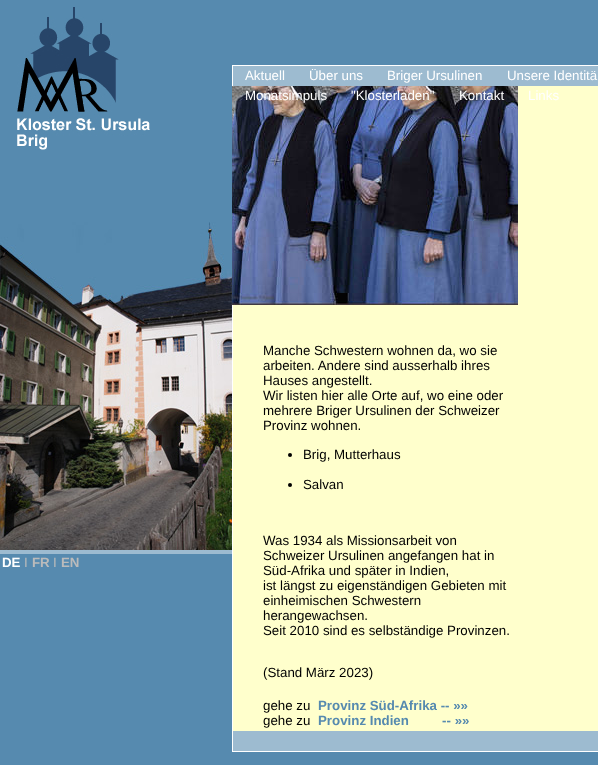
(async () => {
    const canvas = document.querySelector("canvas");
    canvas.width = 598;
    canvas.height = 765;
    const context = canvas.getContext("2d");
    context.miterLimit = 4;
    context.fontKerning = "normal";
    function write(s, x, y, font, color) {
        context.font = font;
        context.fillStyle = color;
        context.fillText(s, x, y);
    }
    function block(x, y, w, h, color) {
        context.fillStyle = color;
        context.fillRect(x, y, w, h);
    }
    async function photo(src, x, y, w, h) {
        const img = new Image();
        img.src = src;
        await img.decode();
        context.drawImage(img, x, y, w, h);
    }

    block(0, 0, 598, 765, "rgb(255, 255, 204)");
    block(232, 0, 366, 65, "rgb(86, 138, 175)");
    block(233, 66, 365, 20, "rgb(157, 187, 208)");
    block(232, 65, 366, 1, "rgb(255, 255, 255)");
    block(232, 65, 1, 21, "rgb(255, 255, 255)");
    write("Aktuell", 245, 80, "13.3px Liberation Sans", "rgb(255, 255, 255)");
    write("Über uns", 309, 80, "13.3px Liberation Sans", "rgb(255, 255, 255)");
    write("Briger Ursulinen", 387, 80, "13.3px Liberation Sans", "rgb(255, 255, 255)");
    write("Unsere Identitä", 507, 80, "13.3px Liberation Sans", "rgb(255, 255, 255)");
    await photo("media/3.png", 232, 86, 286, 219);
    write("Monatsimpuls", 245, 100, "13.3px Liberation Sans", "rgb(255, 255, 255)");
    write("\"Klosterladen\"", 351, 100, "13.3px Liberation Sans", "rgb(255, 255, 255)");
    write("Kontakt", 459, 100, "13.3px Liberation Sans", "rgb(255, 255, 255)");
    write("Links", 528, 100, "13.3px Liberation Sans", "rgb(255, 255, 255)");
    block(0, 0, 232, 765, "rgb(86, 138, 175)");
    await photo("media/1.png", 17, 7, 133, 143);
    await photo("media/2.png", 0, 222, 232, 328);
    block(0, 550, 232, 4, "rgb(157, 187, 208)");
    write("DE", 2, 567, "bold 13.3px Liberation Sans", "rgb(255, 255, 255)");
    write("Ι", 24, 567, "13.3px Liberation Sans", "rgb(187, 187, 187)");
    write("FR", 32, 567, "bold 13.3px Liberation Sans", "rgb(187, 187, 187)");
    write("Ι", 53, 567, "13.3px Liberation Sans", "rgb(187, 187, 187)");
    write("EN", 61, 567, "bold 13.3px Liberation Sans", "rgb(187, 187, 187)");
    block(232, 305, 1, 426, "rgb(255, 255, 255)");
    write("Manche Schwestern wohnen da, wo sie", 263, 355, "13.3px Liberation Sans", "rgb(0, 0, 0)");
    write("arbeiten. Andere sind ausserhalb ihres", 263, 370, "13.3px Liberation Sans", "rgb(0, 0, 0)");
    write("Hauses angestellt.", 263, 385, "13.3px Liberation Sans", "rgb(0, 0, 0)");
    write("Wir listen hier alle Orte auf, wo eine oder", 263, 400, "13.3px Liberation Sans", "rgb(0, 0, 0)");
    write("mehrere Briger Ursulinen der Schweizer", 263, 415, "13.3px Liberation Sans", "rgb(0, 0, 0)");
    write("Provinz wohnen.", 263, 430, "13.3px Liberation Sans", "rgb(0, 0, 0)");
    context.beginPath();
    context.arc(290, 455, 2, 0, Math.PI * 2);
    context.fill();
    write("Brig, Mutterhaus", 303, 459, "13.3px Liberation Sans", "rgb(0, 0, 0)");
    context.beginPath();
    context.arc(290, 485, 2, 0, Math.PI * 2);
    context.fill();
    write("Salvan", 303, 489, "13.3px Liberation Sans", "rgb(0, 0, 0)");
    write("Was 1934 als Missionsarbeit von", 263, 545, "13.3px Liberation Sans", "rgb(0, 0, 0)");
    write("Schweizer Ursulinen angefangen hat in", 263, 560, "13.3px Liberation Sans", "rgb(0, 0, 0)");
    write("Süd-Afrika und später in Indien,", 263, 575, "13.3px Liberation Sans", "rgb(0, 0, 0)");
    write("ist längst zu eigenständigen Gebieten mit", 263, 590, "13.3px Liberation Sans", "rgb(0, 0, 0)");
    write("einheimischen Schwestern", 263, 605, "13.3px Liberation Sans", "rgb(0, 0, 0)");
    write("herangewachsen.", 263, 620, "13.3px Liberation Sans", "rgb(0, 0, 0)");
    write("Seit 2010 sind es selbständige Provinzen.", 263, 635, "13.3px Liberation Sans", "rgb(0, 0, 0)");
    write("(Stand März 2023)", 263, 677, "13.3px Liberation Sans", "rgb(0, 0, 0)");
    write("gehe zu", 263, 710, "13.3px Liberation Sans", "rgb(0, 0, 0)");
    write("Provinz Süd-Afrika -- »»", 318, 710, "bold 13.3px Liberation Sans", "rgb(86, 138, 175)");
    write("gehe zu", 263, 725, "13.3px Liberation Sans", "rgb(0, 0, 0)");
    write("Provinz Indien         -- »»", 318, 725, "bold 13.3px Liberation Sans", "rgb(86, 138, 175)");
    block(233, 731, 365, 20, "rgb(157, 187, 208)");
    block(232, 751, 366, 1, "rgb(255, 255, 255)");
    block(232, 731, 1, 21, "rgb(255, 255, 255)");
    block(232, 752, 366, 13, "rgb(86, 138, 175)");
})();
